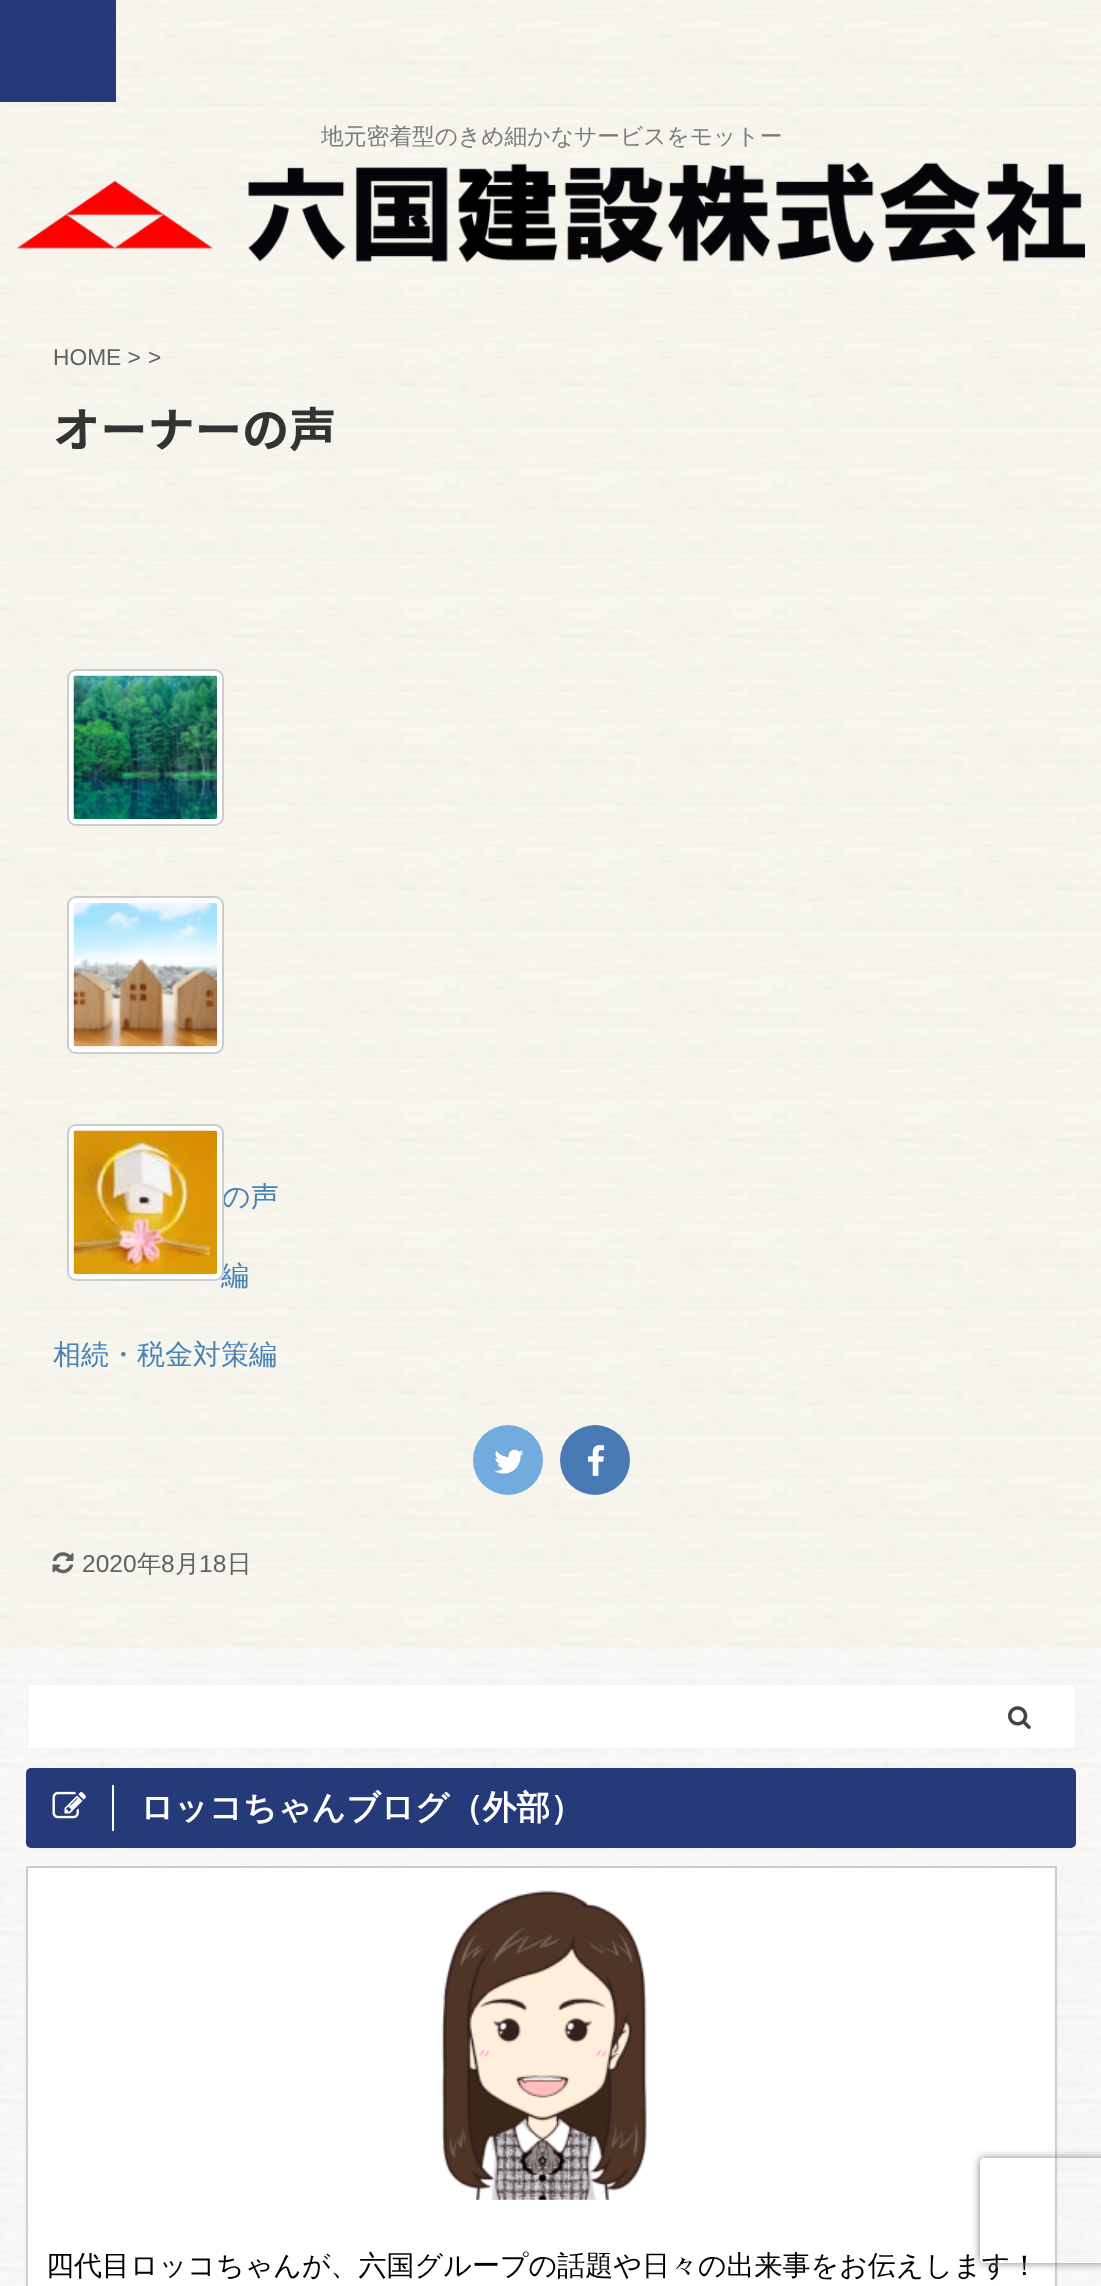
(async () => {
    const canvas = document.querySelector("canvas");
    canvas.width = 1101;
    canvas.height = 2286;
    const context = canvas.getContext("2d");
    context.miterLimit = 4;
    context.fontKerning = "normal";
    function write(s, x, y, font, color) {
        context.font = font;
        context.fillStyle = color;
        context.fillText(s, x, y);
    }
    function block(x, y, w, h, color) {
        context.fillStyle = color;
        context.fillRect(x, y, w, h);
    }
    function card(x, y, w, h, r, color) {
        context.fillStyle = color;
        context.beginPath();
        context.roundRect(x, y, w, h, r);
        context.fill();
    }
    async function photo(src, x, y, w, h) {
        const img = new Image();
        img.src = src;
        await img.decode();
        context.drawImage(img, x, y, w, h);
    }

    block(0, 0, 1101, 2286, "rgb(255, 255, 255)");
    await photo("media/1.png", 0, 0, 1101, 307);
    block(0, 0, 116, 102, "rgb(37, 58, 121)");
    write("地元密着型のきめ細かなサービスをモットー", 321, 144, "500 22.75px WenQuanYi Zen Hei", "rgb(122, 122, 122)");
    await photo("media/2.png", 17, 162, 1068, 101);
    await photo("media/3.png", 0, 1648, 1101, 638);
    await photo("media/4.png", 0, 306, 1101, 1343);
    write("HOME >", 53, 365, "22.75px Liberation Sans", "rgb(97, 97, 97)");
    write(">", 148, 365, "22.75px Liberation Sans", "rgb(97, 97, 97)");
    write("オーナーの声", 53, 447, "bold 47.25px Noto Sans JP", "rgb(51, 51, 51)");
    context.fillStyle = "rgb(255, 255, 255)";
    context.beginPath();
    context.roundRect(68, 670, 155, 155, 8);
    context.fill();
    context.strokeStyle = "rgb(204, 204, 204)";
    context.lineWidth = 2;
    context.stroke();
    await photo("media/5.png", 73, 675, 144, 144);
    context.beginPath();
    context.roundRect(68, 897, 155, 156, 8);
    context.fill();
    context.stroke();
    await photo("media/6.png", 73, 903, 144, 144);
    write("の声", 222, 1206, "500 28px WenQuanYi Zen Hei", "rgb(70, 130, 180)");
    write("編", 221, 1285, "500 28px WenQuanYi Zen Hei", "rgb(70, 130, 180)");
    context.fillStyle = "rgb(255, 255, 255)";
    context.beginPath();
    context.roundRect(68, 1125, 155, 155, 8);
    context.fill();
    context.stroke();
    await photo("media/7.png", 73, 1130, 144, 144);
    write("相続・税金対策編", 53, 1364, "500 28px WenQuanYi Zen Hei", "rgb(70, 130, 180)");
    context.fillStyle = "rgb(113, 171, 223)";
    context.beginPath();
    context.arc(508, 1460, 35, 0, Math.PI * 2);
    context.fill();
    await photo("media/8.png", 494, 1449, 30, 25);
    context.fillStyle = "rgb(74, 122, 180)";
    context.beginPath();
    context.arc(595, 1460, 35, 0, Math.PI * 2);
    context.fill();
    await photo("media/9.png", 588, 1445, 17, 31);
    await photo("media/10.png", 52, 1552, 22, 22);
    write("2020", 82, 1572, "24.5px Liberation Sans", "rgb(97, 97, 97)");
    write("年", 137, 1572, "500 24.5px WenQuanYi Zen Hei", "rgb(97, 97, 97)");
    write("8", 161, 1572, "24.5px Liberation Sans", "rgb(97, 97, 97)");
    write("月", 175, 1572, "500 24.5px WenQuanYi Zen Hei", "rgb(97, 97, 97)");
    write("18", 199, 1572, "24.5px Liberation Sans", "rgb(97, 97, 97)");
    write("日", 227, 1572, "500 24.5px WenQuanYi Zen Hei", "rgb(97, 97, 97)");
    context.strokeStyle = "rgb(243, 243, 243)";
    context.strokeRect(27, 1685, 1048, 64);
    block(28, 1685, 1047, 63, "rgb(255, 255, 255)");
    await photo("media/11.png", 1008, 1706, 23, 23);
    card(26, 1768, 1050, 80, 5, "rgb(37, 58, 121)");
    await photo("media/12.png", 52, 1791, 34, 28);
    block(112, 1785, 2, 46, "rgb(255, 255, 255)");
    write("ロッコちゃんブログ（外部）", 140, 1819, "bold 33.6px WenQuanYi Zen Hei", "rgb(255, 255, 255)");
    context.fillStyle = "rgb(190, 190, 190)";
    context.filter = "blur(7px)";
    context.beginPath();
    context.rect(37, 1894, 1010, 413);
    context.fill();
    context.filter = "none";
    context.fillStyle = "rgb(255, 255, 255)";
    context.beginPath();
    context.rect(27, 1867, 1029, 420);
    context.fill();
    context.strokeStyle = "rgb(204, 204, 204)";
    context.stroke();
    await photo("media/13.png", 441, 1890, 206, 310);
    write("四代目ロッコちゃんが、六国グループの話題や日々の出来事をお伝えします！", 46, 2275, "500 28px WenQuanYi Zen Hei", "rgb(0, 0, 0)");
    context.save();
    context.beginPath();
    context.moveTo(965, 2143);
    context.lineTo(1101, 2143);
    context.lineTo(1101, 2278);
    context.lineTo(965, 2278);
    context.closePath();
    context.moveTo(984, 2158);
    context.lineTo(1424, 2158);
    context.bezierCurveTo(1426, 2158, 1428, 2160, 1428, 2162);
    context.lineTo(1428, 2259);
    context.bezierCurveTo(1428, 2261, 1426, 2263, 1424, 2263);
    context.lineTo(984, 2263);
    context.bezierCurveTo(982, 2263, 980, 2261, 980, 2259);
    context.lineTo(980, 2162);
    context.bezierCurveTo(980, 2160, 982, 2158, 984, 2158);
    context.closePath();
    context.clip("evenodd");
    context.fillStyle = "rgb(128, 128, 128)";
    context.filter = "blur(4.5px)";
    context.beginPath();
    context.roundRect(980, 2158, 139, 105, 4);
    context.fill();
    context.filter = "none";
    context.restore();
})();
